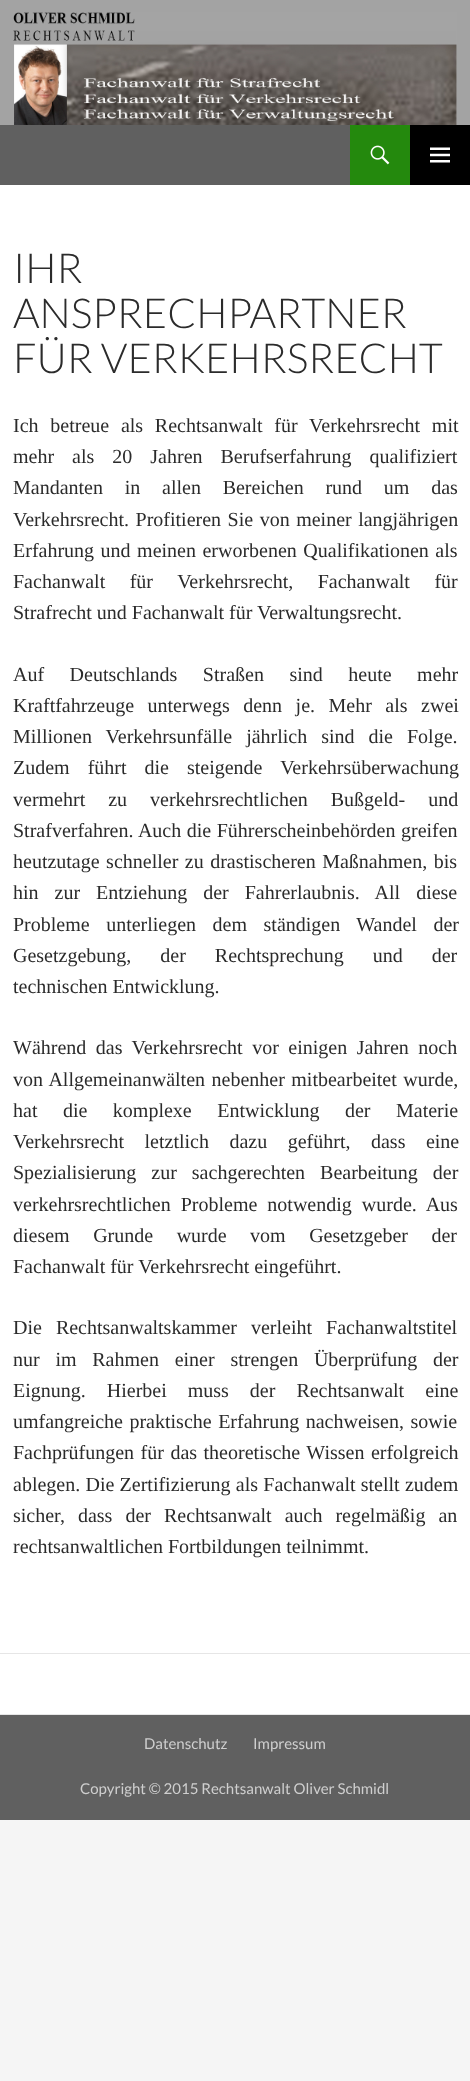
(async () => {
    const canvas = document.querySelector("canvas");
    canvas.width = 470;
    canvas.height = 2081;
    const context = canvas.getContext("2d");
    context.miterLimit = 4;
    context.fontKerning = "normal";
    function write(s, x, y, font, color) {
        context.font = font;
        context.fillStyle = color;
        context.fillText(s, x, y);
    }
    function block(x, y, w, h, color) {
        context.fillStyle = color;
        context.fillRect(x, y, w, h);
    }
    async function photo(src, x, y, w, h) {
        const img = new Image();
        img.src = src;
        await img.decode();
        context.drawImage(img, x, y, w, h);
    }

    block(0, 0, 470, 2081, "rgb(245, 245, 245)");
    block(0, 185, 470, 1529, "rgb(255, 255, 255)");
    block(0, 0, 470, 125, "rgb(163, 163, 163)");
    await photo("media/1.png", 13, 12, 444, 113);
    block(0, 125, 350, 60, "rgb(96, 96, 96)");
    block(350, 125, 60, 60, "rgb(36, 137, 13)");
    await photo("media/2.png", 370, 145, 20, 20);
    block(410, 125, 60, 60, "rgb(0, 0, 0)");
    await photo("media/3.png", 430, 147, 20, 16);
    write("IHR", 13, 283, "300 41.25px Lato", "rgb(43, 43, 43)");
    write("ANSPRECHPARTNER", 13, 328, "300 41.25px Lato", "rgb(43, 43, 43)");
    write("FÜR VERKEHRSRECHT", 13, 373, "300 41.25px Lato", "rgb(43, 43, 43)");
    context.wordSpacing = "6.75px";
    write("Ich betreue als Rechtsanwalt für Verkehrsrecht mit", 13, 432, "20px Liberation Serif", "rgb(43, 43, 43)");
    context.wordSpacing = "13px";
    write("mehr als 20 Jahren Berufserfahrung qualifiziert", 13, 463, "20px Liberation Serif", "rgb(43, 43, 43)");
    context.wordSpacing = "16.75px";
    write("Mandanten in allen Bereichen rund um das", 13, 494, "20px Liberation Serif", "rgb(43, 43, 43)");
    context.wordSpacing = "1.5px";
    write("Verkehrsrecht. Profitieren Sie von meiner langjährigen", 13, 526, "20px Liberation Serif", "rgb(43, 43, 43)");
    write("Erfahrung und meinen erworbenen Qualifikationen als", 13, 557, "20px Liberation Serif", "rgb(43, 43, 43)");
    context.wordSpacing = "19.5px";
    write("Fachanwalt für Verkehrsrecht, Fachanwalt für", 13, 588, "20px Liberation Serif", "rgb(43, 43, 43)");
    context.wordSpacing = "0px";
    write("Strafrecht und Fachanwalt für Verwaltungsrecht.", 13, 619, "20px Liberation Serif", "rgb(43, 43, 43)");
    context.wordSpacing = "20.5px";
    write("Auf Deutschlands Straßen sind heute mehr", 13, 681, "20px Liberation Serif", "rgb(43, 43, 43)");
    context.wordSpacing = "8.5px";
    write("Kraftfahrzeuge unterwegs denn je. Mehr als zwei", 13, 712, "20px Liberation Serif", "rgb(43, 43, 43)");
    context.wordSpacing = "9px";
    write("Millionen Verkehrsunfälle jährlich sind die Folge.", 13, 743, "20px Liberation Serif", "rgb(43, 43, 43)");
    context.wordSpacing = "13px";
    write("Zudem führt die steigende Verkehrsüberwachung", 13, 774, "20px Liberation Serif", "rgb(43, 43, 43)");
    context.wordSpacing = "18px";
    write("vermehrt zu verkehrsrechtlichen Bußgeld- und", 13, 806, "20px Liberation Serif", "rgb(43, 43, 43)");
    context.wordSpacing = "0.5px";
    write("Strafverfahren. Auch die Führerscheinbehörden greifen", 13, 837, "20px Liberation Serif", "rgb(43, 43, 43)");
    context.wordSpacing = "1.5px";
    write("heutzutage schneller zu drastischeren Maßnahmen, bis", 13, 868, "20px Liberation Serif", "rgb(43, 43, 43)");
    context.wordSpacing = "11px";
    write("hin zur Entziehung der Fahrerlaubnis. All diese", 13, 899, "20px Liberation Serif", "rgb(43, 43, 43)");
    context.wordSpacing = "11.5px";
    write("Probleme unterliegen dem ständigen Wandel der", 13, 931, "20px Liberation Serif", "rgb(43, 43, 43)");
    context.wordSpacing = "24px";
    write("Gesetzgebung, der Rechtsprechung und der", 13, 962, "20px Liberation Serif", "rgb(43, 43, 43)");
    context.wordSpacing = "0px";
    write("technischen Entwicklung.", 13, 993, "20px Liberation Serif", "rgb(43, 43, 43)");
    context.wordSpacing = "4.5px";
    write("Während das Verkehrsrecht vor einigen Jahren noch", 13, 1054, "20px Liberation Serif", "rgb(43, 43, 43)");
    context.wordSpacing = "1.5px";
    write("von Allgemeinanwälten nebenher mitbearbeitet wurde,", 13, 1086, "20px Liberation Serif", "rgb(43, 43, 43)");
    context.wordSpacing = "20.5px";
    write("hat die komplexe Entwicklung der Materie", 13, 1117, "20px Liberation Serif", "rgb(43, 43, 43)");
    context.wordSpacing = "15.5px";
    write("Verkehrsrecht letztlich dazu geführt, dass eine", 13, 1148, "20px Liberation Serif", "rgb(43, 43, 43)");
    context.wordSpacing = "10px";
    write("Spezialisierung zur sachgerechten Bearbeitung der", 13, 1179, "20px Liberation Serif", "rgb(43, 43, 43)");
    context.wordSpacing = "5px";
    write("verkehrsrechtlichen Probleme notwendig wurde. Aus", 13, 1211, "20px Liberation Serif", "rgb(43, 43, 43)");
    context.wordSpacing = "18.5px";
    write("diesem Grunde wurde vom Gesetzgeber der", 13, 1242, "20px Liberation Serif", "rgb(43, 43, 43)");
    context.wordSpacing = "0px";
    write("Fachanwalt für Verkehrsrecht eingeführt.", 13, 1273, "20px Liberation Serif", "rgb(43, 43, 43)");
    context.wordSpacing = "9px";
    write("Die Rechtsanwaltskammer verleiht Fachanwaltstitel", 13, 1334, "20px Liberation Serif", "rgb(43, 43, 43)");
    context.wordSpacing = "10.75px";
    write("nur im Rahmen einer strengen Überprüfung der", 13, 1366, "20px Liberation Serif", "rgb(43, 43, 43)");
    context.wordSpacing = "16px";
    write("Eignung. Hierbei muss der Rechtsanwalt eine", 13, 1397, "20px Liberation Serif", "rgb(43, 43, 43)");
    context.wordSpacing = "1.5px";
    write("umfangreiche praktische Erfahrung nachweisen, sowie", 13, 1428, "20px Liberation Serif", "rgb(43, 43, 43)");
    write("Fachprüfungen für das theoretische Wissen erfolgreich", 13, 1459, "20px Liberation Serif", "rgb(43, 43, 43)");
    context.wordSpacing = "0.25px";
    write("ablegen. Die Zertifizierung als Fachanwalt stellt zudem", 13, 1491, "20px Liberation Serif", "rgb(43, 43, 43)");
    context.wordSpacing = "8px";
    write("sicher, dass der Rechtsanwalt auch regelmäßig an", 13, 1522, "20px Liberation Serif", "rgb(43, 43, 43)");
    context.wordSpacing = "0px";
    write("rechtsanwaltlichen Fortbildungen teilnimmt.", 13, 1553, "20px Liberation Serif", "rgb(43, 43, 43)");
    block(0, 1653, 470, 1, "rgb(230, 230, 230)");
    block(0, 1714, 470, 1, "rgb(230, 230, 230)");
    block(0, 1715, 470, 105, "rgb(96, 96, 96)");
    write("Datenschutz", 144, 1749, "15px Lato", "rgb(207, 207, 207)");
    write("Impressum", 253, 1749, "15px Lato", "rgb(207, 207, 207)");
    write("Copyright © 2015 Rechtsanwalt Oliver Schmidl", 80, 1794, "15px Lato", "rgb(207, 207, 207)");
})();
